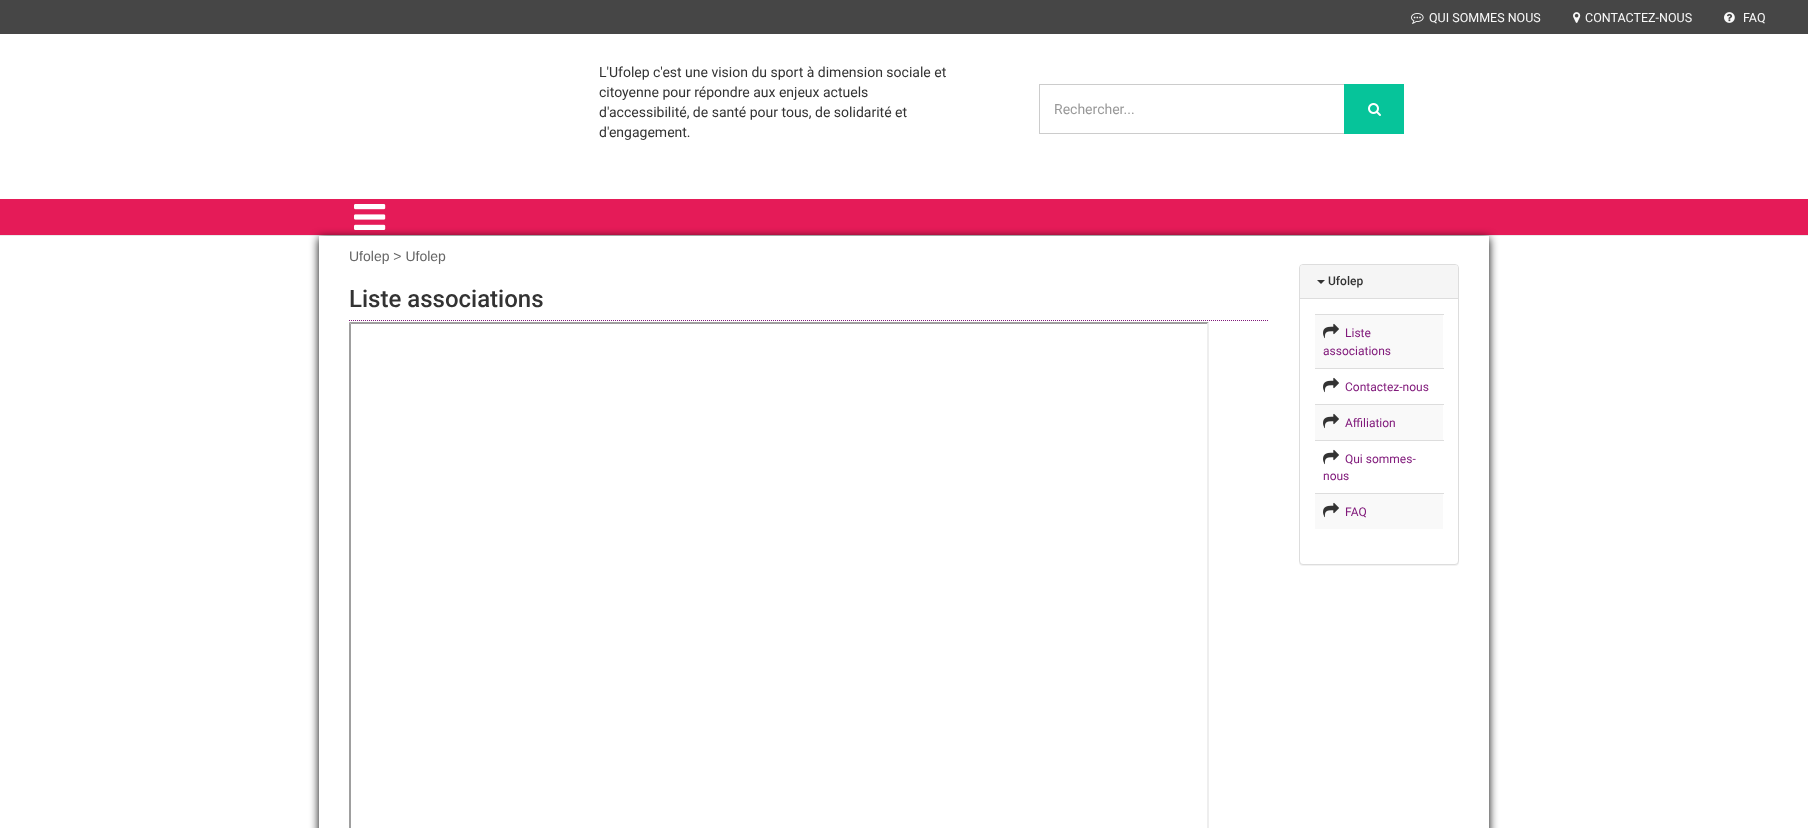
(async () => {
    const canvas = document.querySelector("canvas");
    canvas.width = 1808;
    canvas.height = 828;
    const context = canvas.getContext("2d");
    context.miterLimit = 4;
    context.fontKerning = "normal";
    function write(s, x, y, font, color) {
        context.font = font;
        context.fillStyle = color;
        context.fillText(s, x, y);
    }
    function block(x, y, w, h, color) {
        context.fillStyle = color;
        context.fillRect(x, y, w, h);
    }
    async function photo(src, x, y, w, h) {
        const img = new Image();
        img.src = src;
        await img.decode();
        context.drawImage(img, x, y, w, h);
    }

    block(0, 0, 1808, 828, "rgb(255, 255, 255)");
    block(0, 0, 1808, 34, "rgb(70, 70, 70)");
    await photo("media/1.png", 1411, 13, 13, 11);
    write("QUI SOMMES NOUS", 1429, 22, "12.5px Roboto", "rgb(249, 249, 249)");
    await photo("media/2.png", 1573, 12, 8, 11);
    write("CONTACTEZ-NOUS", 1585, 22, "12.5px Roboto", "rgb(249, 249, 249)");
    await photo("media/3.png", 1724, 12, 11, 11);
    write("FAQ", 1743, 22, "12.5px Roboto", "rgb(249, 249, 249)");
    write("L'Ufolep c'est une vision du sport à dimension sociale et", 599, 77, "14px Roboto", "rgb(51, 51, 51)");
    write("citoyenne pour répondre aux enjeux actuels", 599, 97, "14px Roboto", "rgb(51, 51, 51)");
    write("d'accessibilité, de santé pour tous, de solidarité et", 599, 117, "14px Roboto", "rgb(51, 51, 51)");
    write("d'engagement.", 599, 137, "14px Roboto", "rgb(51, 51, 51)");
    context.strokeStyle = "rgb(204, 204, 204)";
    context.strokeRect(1039.5, 84.5, 364, 49);
    write("Rechercher...", 1054, 114, "14px Roboto", "rgb(153, 153, 153)");
    block(1344, 84, 60, 50, "rgb(6, 196, 154)");
    await photo("media/4.png", 1368, 103, 13, 13);
    block(0, 199, 1808, 36, "rgb(229, 27, 88)");
    block(0, 235, 1808, 1, "rgb(234, 234, 234)");
    context.save();
    context.beginPath();
    context.moveTo(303, 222);
    context.lineTo(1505, 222);
    context.lineTo(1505, 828);
    context.lineTo(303, 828);
    context.closePath();
    context.moveTo(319, 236);
    context.lineTo(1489, 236);
    context.lineTo(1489, 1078);
    context.lineTo(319, 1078);
    context.closePath();
    context.clip("evenodd");
    context.fillStyle = "rgb(0, 0, 0)";
    context.filter = "blur(5px)";
    context.beginPath();
    context.rect(319, 238, 1170, 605);
    context.fill();
    context.filter = "none";
    context.restore();
    await photo("media/5.png", 354, 204, 32, 26);
    write("Ufolep > Ufolep", 349, 261, "14px Liberation Sans", "rgb(102, 102, 102)");
    write("Liste associations", 349, 307, "500 24px Roboto", "rgb(51, 51, 51)");
    context.beginPath();
    context.moveTo(349, 320.5);
    context.lineTo(1269, 320.5);
    context.strokeStyle = "rgb(129, 26, 123)";
    context.setLineDash([1, 1]);
    context.stroke();
    context.fillStyle = "rgb(159, 159, 159)";
    context.beginPath();
    context.moveTo(349, 322);
    context.lineTo(1209, 322);
    context.lineTo(1207, 324);
    context.lineTo(351, 324);
    context.closePath();
    context.fill();
    context.beginPath();
    context.moveTo(349, 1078);
    context.lineTo(349, 322);
    context.lineTo(351, 324);
    context.lineTo(351, 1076);
    context.closePath();
    context.fill();
    context.fillStyle = "rgb(238, 238, 238)";
    context.beginPath();
    context.moveTo(1209, 322);
    context.lineTo(1209, 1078);
    context.lineTo(1207, 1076);
    context.lineTo(1207, 324);
    context.closePath();
    context.fill();
    context.fillStyle = "rgba(0, 0, 0, 0.05)";
    context.filter = "blur(0.5px)";
    context.beginPath();
    context.roundRect(1299, 265, 160, 301, 4);
    context.fill();
    context.filter = "none";
    context.fillStyle = "rgb(255, 255, 255)";
    context.beginPath();
    context.roundRect(1299.5, 264.5, 159, 300, 3.5);
    context.fill();
    context.strokeStyle = "rgb(221, 221, 221)";
    context.setLineDash([]);
    context.stroke();
    context.fillStyle = "rgb(245, 245, 245)";
    context.beginPath();
    context.roundRect(1300, 265, 158, 34, [3, 3, 0, 0]);
    context.fill();
    block(1300, 298, 158, 1, "rgb(221, 221, 221)");
    context.fillStyle = "rgb(51, 51, 51)";
    context.beginPath();
    context.moveTo(1317, 280);
    context.lineTo(1325, 280);
    context.lineTo(1321, 284);
    context.closePath();
    context.fill();
    write("Ufolep", 1328, 285, "500 12px Roboto", "rgb(51, 51, 51)");
    block(1315, 315, 128, 53, "rgb(249, 249, 249)");
    block(1315, 314, 129, 1, "rgb(221, 221, 221)");
    await photo("media/6.png", 1323, 323, 16, 16);
    write("Liste", 1345, 337, "12px Roboto", "rgb(129, 26, 123)");
    write("associations", 1323, 355, "12px Roboto", "rgb(129, 26, 123)");
    block(1315, 368, 129, 1, "rgb(221, 221, 221)");
    await photo("media/7.png", 1323, 377, 16, 16);
    write("Contactez-nous", 1345, 391, "12px Roboto", "rgb(129, 26, 123)");
    block(1315, 405, 128, 35, "rgb(249, 249, 249)");
    block(1315, 404, 129, 1, "rgb(221, 221, 221)");
    await photo("media/6.png", 1323, 413, 16, 16);
    write("Affiliation", 1345, 427, "12px Roboto", "rgb(129, 26, 123)");
    block(1315, 440, 129, 1, "rgb(221, 221, 221)");
    await photo("media/7.png", 1323, 449, 16, 16);
    write("Qui sommes-", 1345, 463, "12px Roboto", "rgb(129, 26, 123)");
    write("nous", 1323, 480, "12px Roboto", "rgb(129, 26, 123)");
    block(1315, 494, 128, 35, "rgb(249, 249, 249)");
    block(1315, 493, 129, 1, "rgb(221, 221, 221)");
    await photo("media/6.png", 1323, 502, 16, 16);
    write("FAQ", 1345, 516, "12px Roboto", "rgb(129, 26, 123)");
})();
